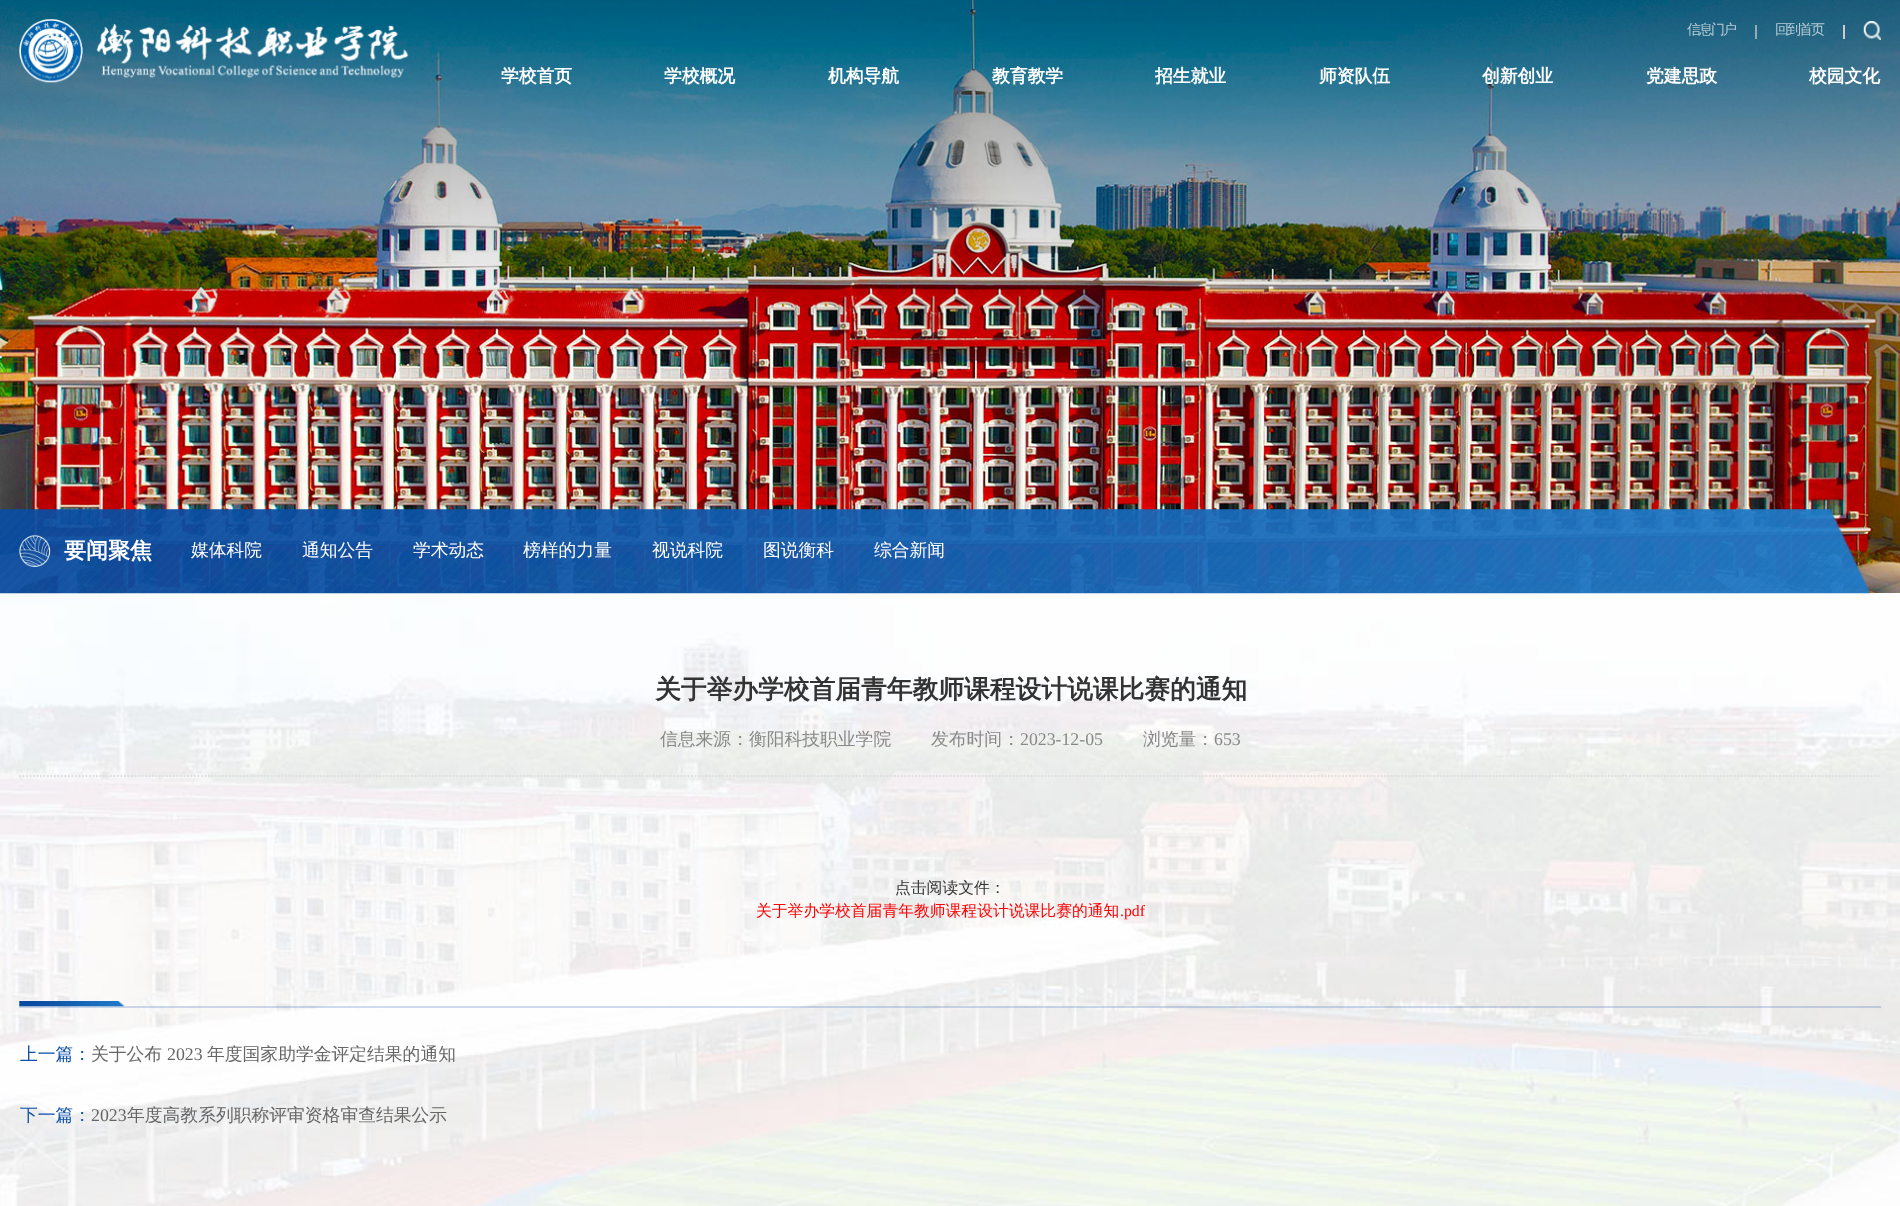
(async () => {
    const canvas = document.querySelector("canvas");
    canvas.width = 1900;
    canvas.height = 1206;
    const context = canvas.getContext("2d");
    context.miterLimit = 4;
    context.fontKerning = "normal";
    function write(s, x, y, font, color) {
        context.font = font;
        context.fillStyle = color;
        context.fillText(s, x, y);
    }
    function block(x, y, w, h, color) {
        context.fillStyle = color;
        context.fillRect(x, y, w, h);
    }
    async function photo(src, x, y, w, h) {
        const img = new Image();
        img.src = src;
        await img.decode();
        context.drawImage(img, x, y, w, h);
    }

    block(0, 0, 1900, 1206, "rgb(255, 255, 255)");
    await photo("media/1.png", 0, 0, 1900, 594);
    await photo("media/2.png", 0, 0, 1900, 325);
    await photo("media/3.png", 19, 19, 390, 64);
    context.letterSpacing = "-2px";
    write("信息门户", 1687, 34, "500 14px WenQuanYi Zen Hei", "rgb(184, 205, 215)");
    block(1755, 25, 2, 14, "rgba(204, 204, 204, 0.68)");
    write("回到首页", 1775, 34, "500 14px WenQuanYi Zen Hei", "rgb(184, 205, 215)");
    block(1843, 25, 2, 14, "rgb(204, 204, 204)");
    await photo("media/4.png", 1863, 21, 18, 19);
    context.letterSpacing = "0px";
    write("学校首页", 501, 82, "bold 17.8px WenQuanYi Zen Hei", "rgb(255, 255, 255)");
    write("学校概况", 664, 82, "bold 17.8px WenQuanYi Zen Hei", "rgb(255, 255, 255)");
    write("机构导航", 828, 82, "bold 17.8px WenQuanYi Zen Hei", "rgb(255, 255, 255)");
    write("教育教学", 992, 82, "bold 17.8px WenQuanYi Zen Hei", "rgb(255, 255, 255)");
    write("招生就业", 1155, 82, "bold 17.8px WenQuanYi Zen Hei", "rgb(255, 255, 255)");
    write("师资队伍", 1319, 82, "bold 17.8px WenQuanYi Zen Hei", "rgb(255, 255, 255)");
    write("创新创业", 1482, 82, "bold 17.8px WenQuanYi Zen Hei", "rgb(255, 255, 255)");
    write("党建思政", 1646, 82, "bold 17.8px WenQuanYi Zen Hei", "rgb(255, 255, 255)");
    write("校园文化", 1809, 82, "bold 17.8px WenQuanYi Zen Hei", "rgb(255, 255, 255)");
    await photo("media/5.png", 0, 593, 1900, 613);
    await photo("media/6.png", 0, 509, 1871, 85);
    await photo("media/7.png", 19, 535, 32, 32);
    write("要闻聚焦", 64, 558, "bold 22px WenQuanYi Zen Hei", "rgb(255, 255, 255)");
    write("媒体科院", 191, 556, "500 17.8px WenQuanYi Zen Hei", "rgb(255, 255, 255)");
    write("通知公告", 302, 556, "500 17.8px WenQuanYi Zen Hei", "rgb(255, 255, 255)");
    write("学术动态", 413, 556, "500 17.8px WenQuanYi Zen Hei", "rgb(255, 255, 255)");
    write("榜样的力量", 523, 556, "500 17.8px WenQuanYi Zen Hei", "rgb(255, 255, 255)");
    write("视说科院", 652, 556, "500 17.8px WenQuanYi Zen Hei", "rgb(255, 255, 255)");
    write("图说衡科", 763, 556, "500 17.8px WenQuanYi Zen Hei", "rgb(255, 255, 255)");
    write("综合新闻", 874, 556, "500 17.8px WenQuanYi Zen Hei", "rgb(255, 255, 255)");
    write("关于举办学校首届青年教师课程设计说课比赛的通知", 655, 698, "bold 25.75px WenQuanYi Zen Hei", "rgb(51, 51, 51)");
    context.beginPath();
    context.moveTo(19, 776);
    context.lineTo(1881, 776);
    context.strokeStyle = "rgb(223, 223, 223)";
    context.lineWidth = 1.8;
    context.setLineDash([1.75, 1.75]);
    context.stroke();
    write("信息来源：衡阳科技职业学院", 660, 745, "500 17.8px WenQuanYi Zen Hei", "rgb(136, 136, 136)");
    write("发布时间：", 931, 745, "500 17.8px WenQuanYi Zen Hei", "rgb(136, 136, 136)");
    write("2023-12-05", 1020, 745, "17.8px Liberation Serif", "rgb(136, 136, 136)");
    write("浏览量：", 1143, 745, "500 17.8px WenQuanYi Zen Hei", "rgb(136, 136, 136)");
    write("653", 1214, 745, "17.8px Liberation Serif", "rgb(136, 136, 136)");
    write("点击阅读文件：", 895, 893, "500 15.8px WenQuanYi Zen Hei", "rgb(51, 51, 51)");
    write("关于举办学校首届青年教师课程设计说课比赛的通知", 756, 916, "500 15.8px WenQuanYi Zen Hei", "rgb(255, 1, 0)");
    write(".pdf", 1120, 916, "15.8px Liberation Serif", "rgb(255, 1, 0)");
    block(19, 1006, 1862, 2, "rgba(15, 81, 169, 0.2)");
    await photo("media/8.png", 19, 1001, 106, 6);
    write("上一篇：", 20, 1060, "500 17.8px WenQuanYi Zen Hei", "rgb(15, 81, 169)");
    write("关于公布", 91, 1060, "500 17.8px WenQuanYi Zen Hei", "rgb(102, 102, 102)");
    write("2023", 167, 1060, "17.8px Liberation Serif", "rgb(102, 102, 102)");
    write("年度国家助学金评定结果的通知", 207, 1060, "500 17.8px WenQuanYi Zen Hei", "rgb(102, 102, 102)");
    write("下一篇：", 20, 1121, "500 17.8px WenQuanYi Zen Hei", "rgb(15, 81, 169)");
    write("2023", 91, 1121, "17.8px Liberation Serif", "rgb(102, 102, 102)");
    write("年度高教系列职称评审资格审查结果公示", 127, 1121, "500 17.8px WenQuanYi Zen Hei", "rgb(102, 102, 102)");
})();
